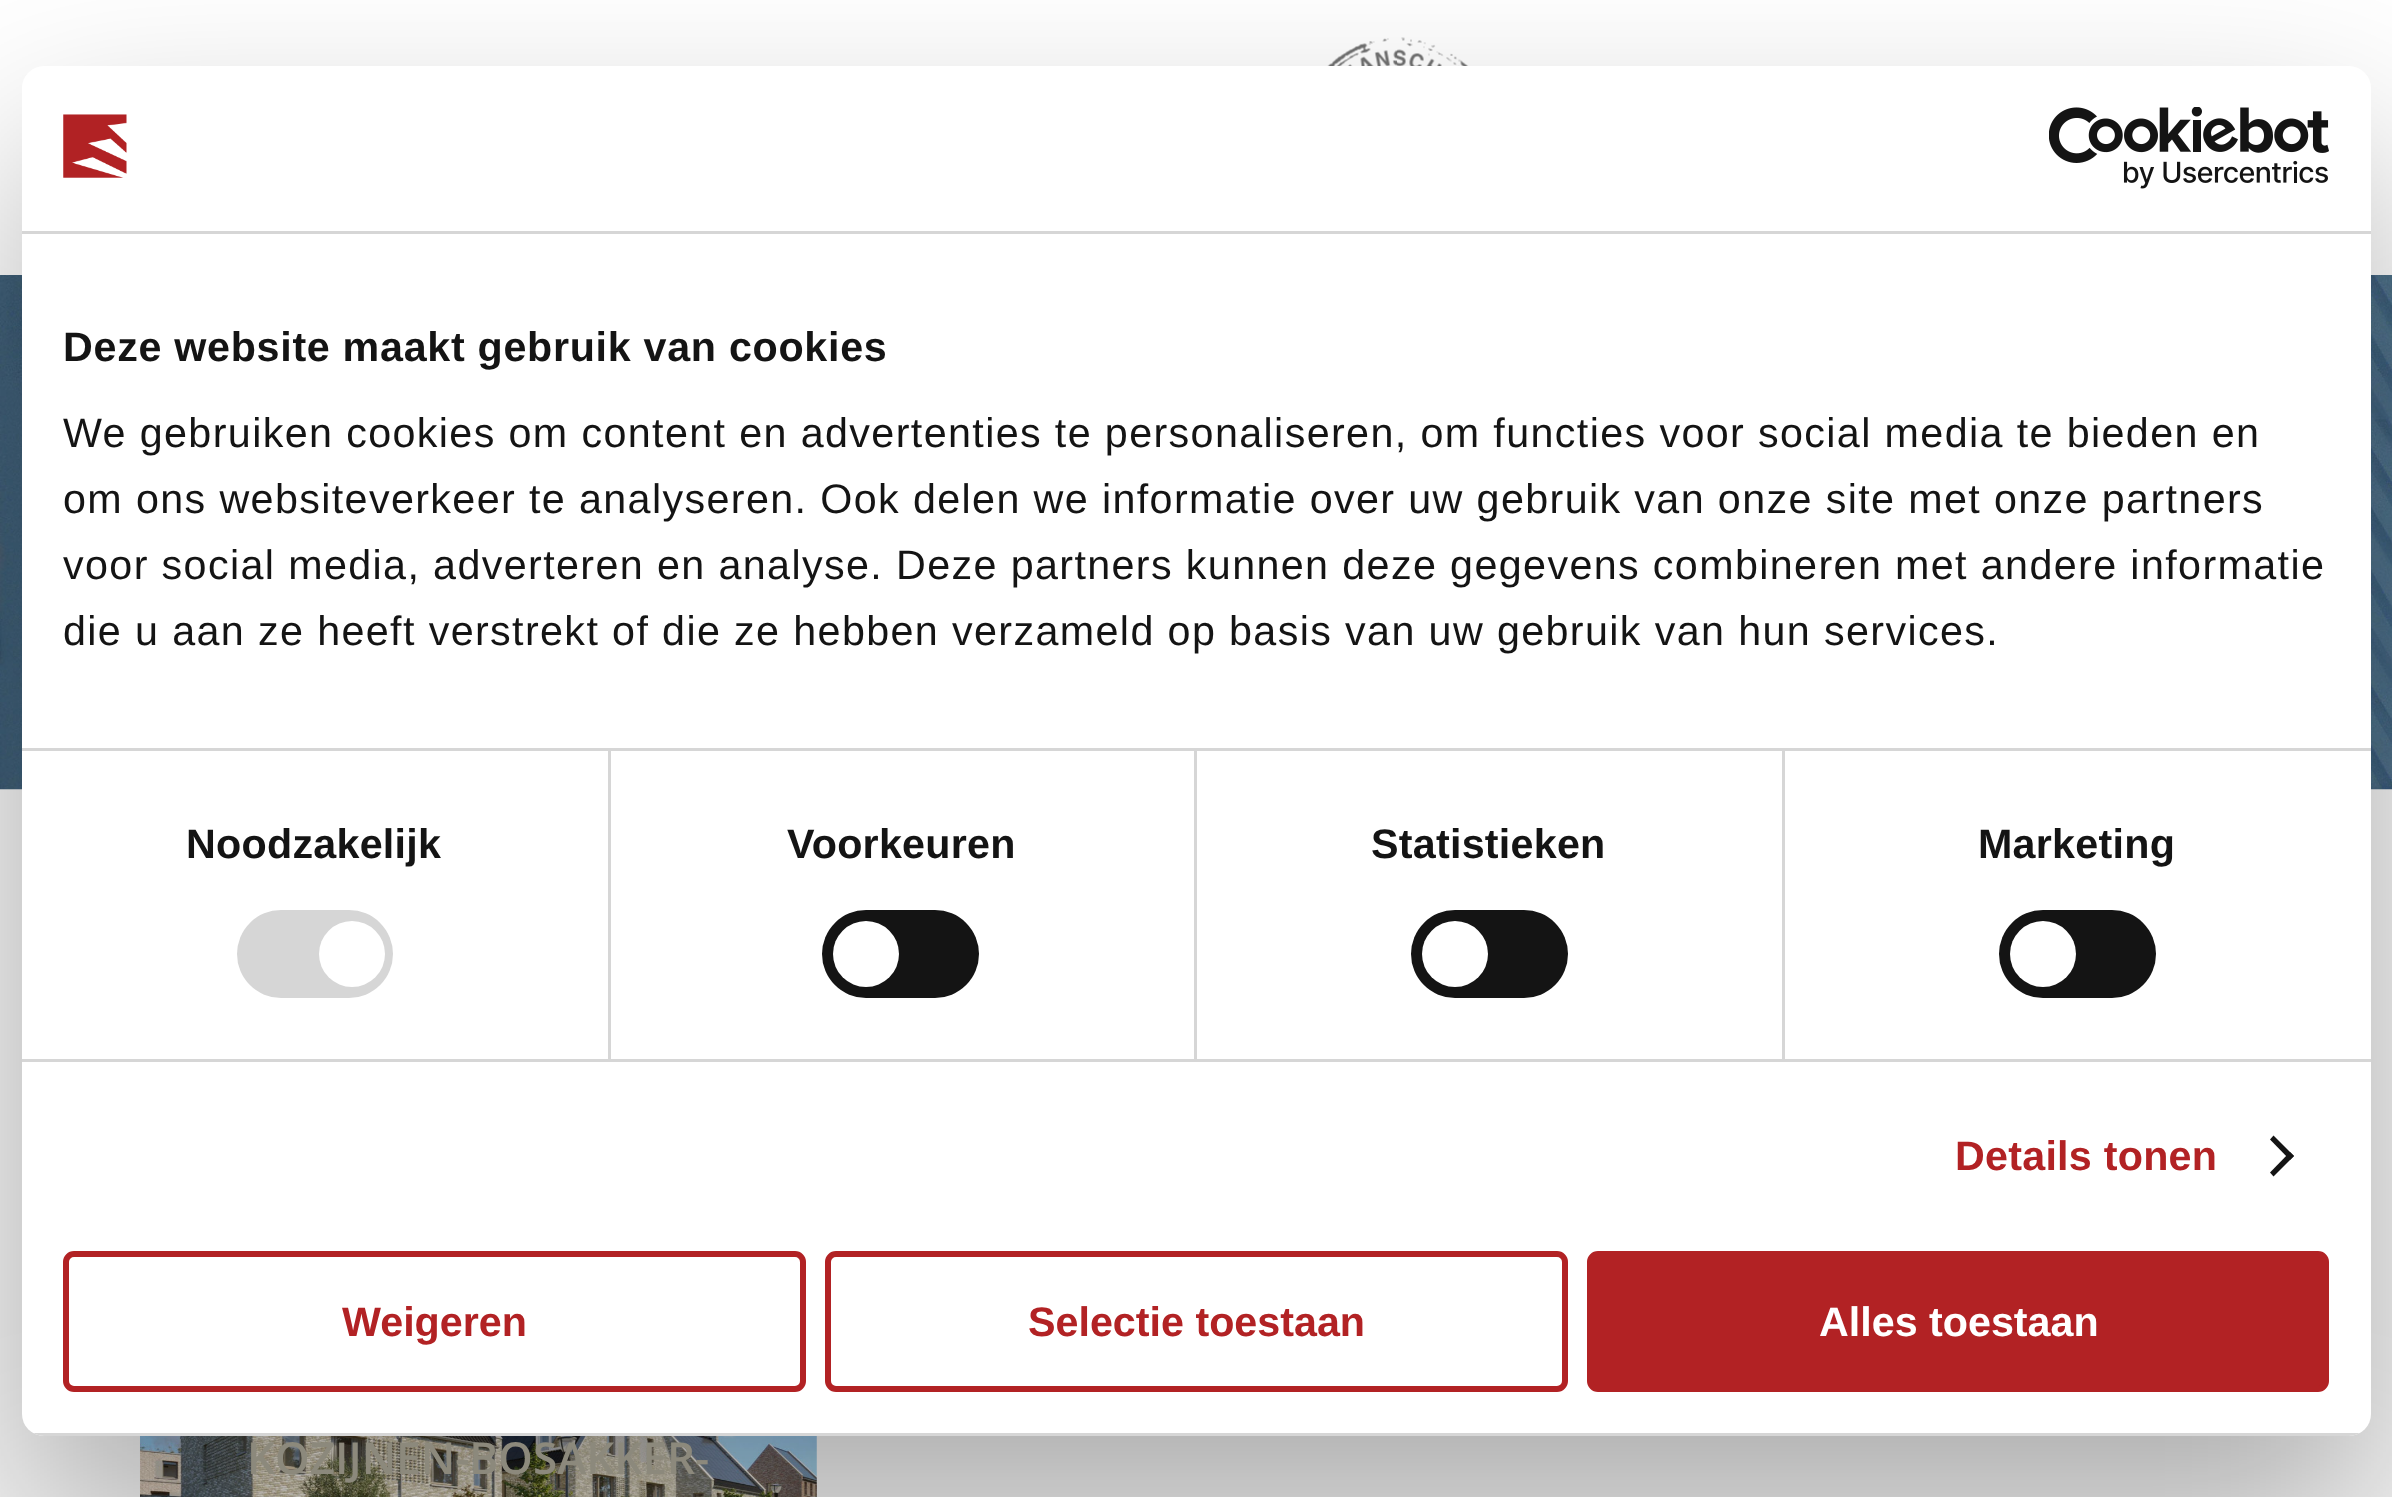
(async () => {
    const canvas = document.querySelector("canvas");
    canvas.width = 2392;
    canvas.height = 1497;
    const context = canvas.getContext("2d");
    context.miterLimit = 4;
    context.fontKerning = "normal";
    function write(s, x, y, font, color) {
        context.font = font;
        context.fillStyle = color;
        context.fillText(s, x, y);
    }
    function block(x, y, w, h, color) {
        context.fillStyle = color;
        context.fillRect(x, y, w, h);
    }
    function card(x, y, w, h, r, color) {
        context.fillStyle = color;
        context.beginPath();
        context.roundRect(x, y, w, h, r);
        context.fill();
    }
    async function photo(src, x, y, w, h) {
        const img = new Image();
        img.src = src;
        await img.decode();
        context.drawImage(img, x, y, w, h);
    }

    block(0, 0, 2392, 1497, "rgb(246, 246, 246)");
    block(0, 0, 2392, 275, "rgb(255, 255, 255)");
    await photo("media/3.png", 1327, 37, 142, 29);
    await photo("media/4.png", 0, 275, 2392, 515);
    await photo("media/5.png", 140, 1436, 677, 61);
    context.fillStyle = "rgba(0, 0, 0, 0.3)";
    context.filter = "blur(93.5px)";
    context.beginPath();
    context.roundRect(22, 154, 2349, 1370, 22);
    context.fill();
    context.filter = "none";
    card(22, 66, 2349, 1370, 22, "rgb(255, 255, 255)");
    block(22, 231, 2349, 3, "rgb(214, 214, 214)");
    await photo("media/1.png", 63, 114, 64, 64);
    await photo("media/2.png", 2049, 107, 280, 82);
    block(22, 748, 2349, 3, "rgb(214, 214, 214)");
    context.letterSpacing = "0.7px";
    write("Deze website maakt gebruik van cookies", 63, 361, "bold 41.25px Liberation Sans", "rgb(20, 20, 20)");
    context.letterSpacing = "1.38px";
    write("We gebruiken cookies om content en advertenties te personaliseren, om functies voor social media te bieden en", 63, 447, "41.25px Liberation Sans", "rgb(20, 20, 20)");
    write("om ons websiteverkeer te analyseren. Ook delen we informatie over uw gebruik van onze site met onze partners", 63, 513, "41.25px Liberation Sans", "rgb(20, 20, 20)");
    write("voor social media, adverteren en analyse. Deze partners kunnen deze gegevens combineren met andere informatie", 63, 579, "41.25px Liberation Sans", "rgb(20, 20, 20)");
    write("die u aan ze heeft verstrekt of die ze hebben verzameld op basis van uw gebruik van hun services.", 63, 645, "41.25px Liberation Sans", "rgb(20, 20, 20)");
    block(22, 1059, 2349, 3, "rgb(214, 214, 214)");
    block(608, 751, 3, 308, "rgb(214, 214, 214)");
    context.letterSpacing = "0.25px";
    write("Noodzakelijk", 186, 858, "bold 41.25px Liberation Sans", "rgb(20, 20, 20)");
    card(237, 910, 156, 88, 44, "rgb(214, 214, 214)");
    context.fillStyle = "rgb(255, 255, 255)";
    context.beginPath();
    context.arc(352, 954, 33, 0, Math.PI * 2);
    context.fill();
    block(1194, 751, 3, 308, "rgb(214, 214, 214)");
    write("Voorkeuren", 787, 858, "bold 41.25px Liberation Sans", "rgb(20, 20, 20)");
    card(822, 910, 157, 88, 44, "rgb(20, 20, 20)");
    context.fillStyle = "rgb(255, 255, 255)";
    context.beginPath();
    context.arc(866, 954, 33, 0, Math.PI * 2);
    context.fill();
    block(1782, 751, 3, 308, "rgb(214, 214, 214)");
    write("Statistieken", 1371, 858, "bold 41.25px Liberation Sans", "rgb(20, 20, 20)");
    card(1411, 910, 157, 88, 44, "rgb(20, 20, 20)");
    context.fillStyle = "rgb(255, 255, 255)";
    context.beginPath();
    context.arc(1455, 954, 33, 0, Math.PI * 2);
    context.fill();
    write("Marketing", 1978, 858, "bold 41.25px Liberation Sans", "rgb(20, 20, 20)");
    card(1999, 910, 157, 88, 44, "rgb(20, 20, 20)");
    context.fillStyle = "rgb(255, 255, 255)";
    context.beginPath();
    context.arc(2043, 954, 33, 0, Math.PI * 2);
    context.fill();
    write("Details tonen", 1955, 1170, "bold 41.25px Liberation Sans", "rgb(178, 34, 36)");
    context.fillStyle = "rgb(20, 20, 20)";
    context.beginPath();
    context.moveTo(2273.5, 1135.5);
    context.lineTo(2294, 1156);
    context.lineTo(2290, 1160);
    context.lineTo(2270, 1139.5);
    context.closePath();
    context.fill();
    context.beginPath();
    context.moveTo(2290, 1152);
    context.lineTo(2294, 1156);
    context.lineTo(2273.5, 1176.5);
    context.lineTo(2270, 1172.5);
    context.closePath();
    context.fill();
    context.save();
    context.beginPath();
    context.roundRect(22, 66, 2349, 1370, 22);
    context.clip();
    block(33, 1433, 2327, 3, "rgb(214, 214, 214)");
    context.restore();
    context.beginPath();
    context.roundRect(66, 1254, 737, 135, 8);
    context.strokeStyle = "rgb(178, 34, 36)";
    context.lineWidth = 6;
    context.stroke();
    context.letterSpacing = "0px";
    write("Weigeren", 342, 1336, "bold 41.25px Liberation Sans", "rgb(178, 34, 36)");
    context.beginPath();
    context.roundRect(828, 1254, 737, 135, 8);
    context.stroke();
    write("Selectie toestaan", 1028, 1336, "bold 41.25px Liberation Sans", "rgb(178, 34, 36)");
    context.beginPath();
    context.roundRect(1590, 1254, 736, 135, 8);
    context.fill();
    context.stroke();
    write("Alles toestaan", 1819, 1336, "bold 41.25px Liberation Sans", "rgb(255, 255, 255)");
    write("KOZIJNEN-BOSAKKER-", 247, 1474, "600 44px Open Sans", "rgb(140, 137, 124)");
})();
